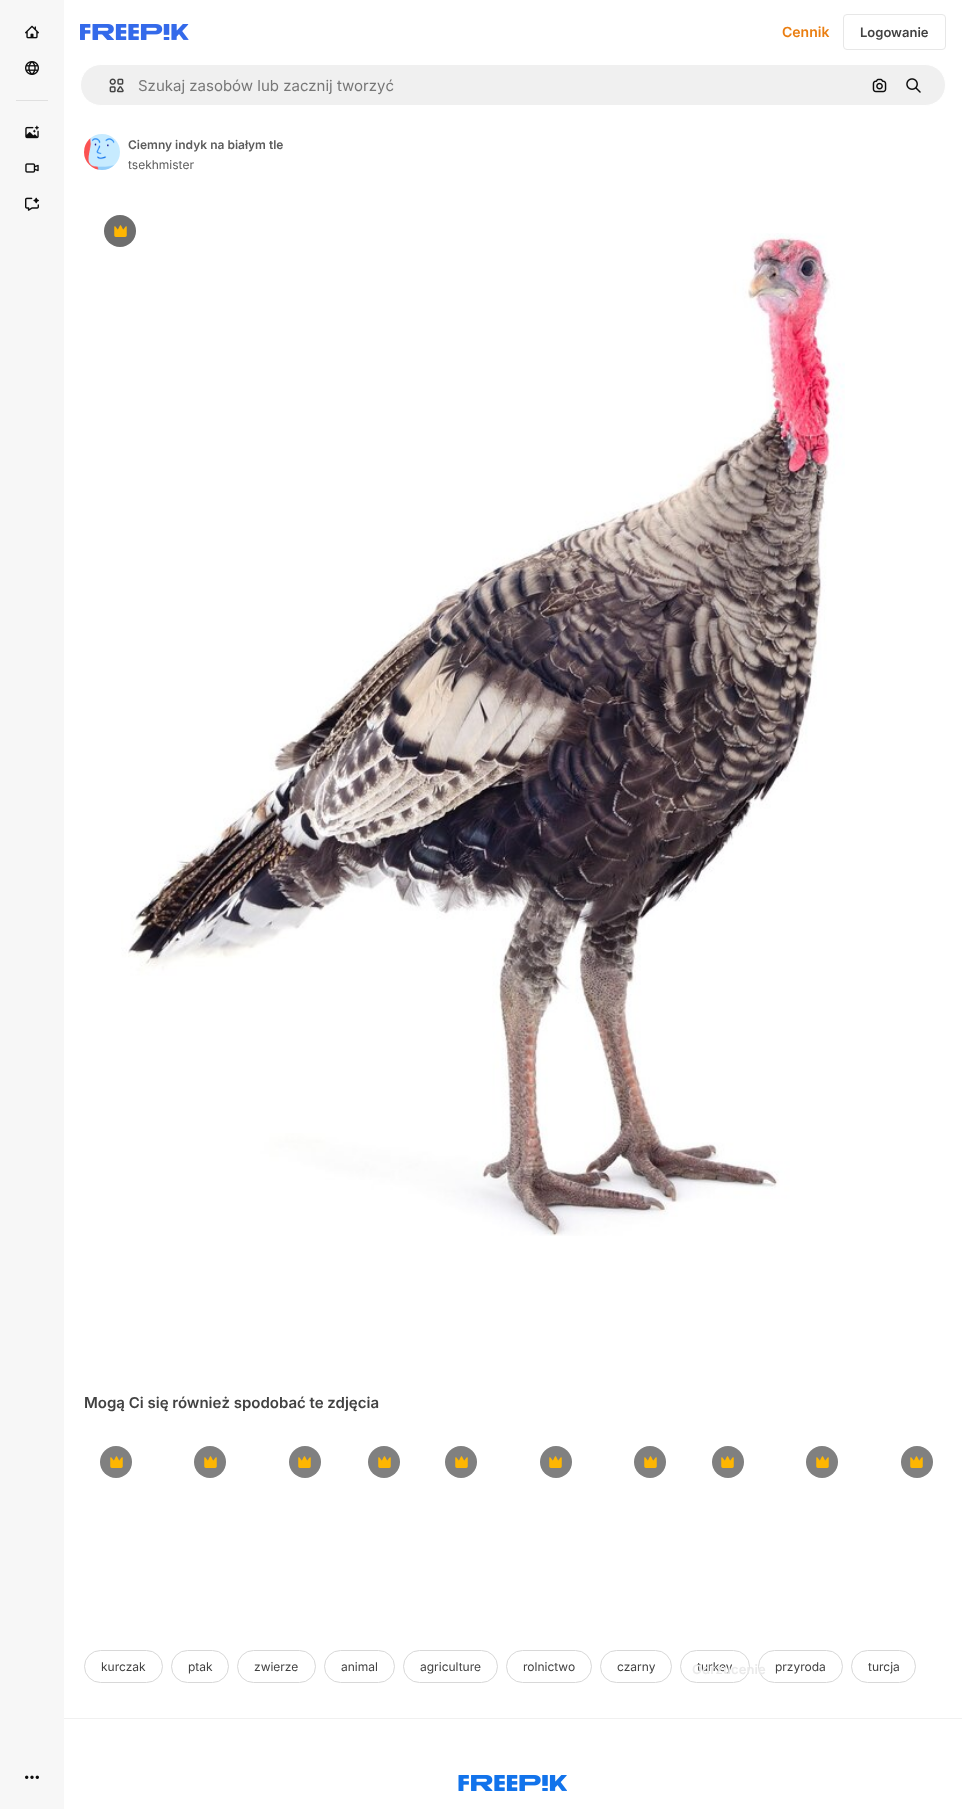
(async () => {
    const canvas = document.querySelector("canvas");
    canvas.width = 962;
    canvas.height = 1809;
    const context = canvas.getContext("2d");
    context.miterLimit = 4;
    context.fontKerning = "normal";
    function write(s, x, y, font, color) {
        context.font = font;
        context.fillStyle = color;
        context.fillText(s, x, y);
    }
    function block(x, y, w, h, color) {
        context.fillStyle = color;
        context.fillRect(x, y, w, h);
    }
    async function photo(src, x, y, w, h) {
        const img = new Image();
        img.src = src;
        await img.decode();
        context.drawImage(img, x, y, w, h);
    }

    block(0, 0, 962, 1809, "rgb(255, 255, 255)");
    block(0, 0, 64, 1809, "rgb(247, 247, 247)");
    await photo("media/1.png", 25, 25, 14, 14);
    await photo("media/2.png", 25, 61, 14, 14);
    block(16, 100, 32, 1, "rgb(224, 224, 224)");
    await photo("media/3.png", 25, 125, 14, 14);
    await photo("media/4.png", 25, 163, 14, 10);
    await photo("media/5.png", 25, 197, 14, 14);
    await photo("media/6.png", 25, 1775, 14, 4);
    await photo("media/7.png", 80, 24, 109, 16);
    write("Cennik", 782, 37, "600 14px Inter", "rgb(234, 126, 17)");
    context.beginPath();
    context.roundRect(843.5, 14.5, 102, 35, 3.5);
    context.strokeStyle = "rgb(231, 231, 231)";
    context.stroke();
    write("Logowanie", 860, 37, "600 13px Inter", "rgb(66, 66, 66)");
    context.fillStyle = "rgb(240, 240, 240)";
    context.beginPath();
    context.roundRect(80.5, 64.5, 865, 41, 20.5);
    context.fill();
    context.strokeStyle = "rgb(255, 255, 255)";
    context.stroke();
    await photo("media/8.png", 109, 78, 15, 15);
    write("Szukaj zasobów lub zacznij tworzyć", 138, 91, "15px Inter", "rgb(119, 119, 119)");
    await photo("media/9.png", 872, 78, 15, 15);
    await photo("media/10.png", 906, 78, 15, 15);
    await photo("media/11.png", 84, 134, 36, 36);
    write("Ciemny indyk na białym tle", 128, 149, "600 12px Inter", "rgb(92, 92, 92)");
    write("tsekhmister", 128, 169, "12px Inter", "rgb(92, 92, 92)");
    await photo("media/13.png", 121, 233, 724, 1003);
    context.fillStyle = "rgb(110, 110, 110)";
    context.beginPath();
    context.arc(120, 231, 16, 0, Math.PI * 2);
    context.fill();
    await photo("media/12.png", 114, 225, 13, 12);
    write("Mogą Ci się również spodobać te zdjęcia", 84, 1408, "600 15px Inter", "rgb(66, 66, 66)");
    context.fillStyle = "rgb(128, 128, 128)";
    context.beginPath();
    context.arc(116, 1462, 16, 0, Math.PI * 2);
    context.fill();
    await photo("media/14.png", 110, 1456, 13, 12);
    context.beginPath();
    context.arc(210, 1462, 16, 0, Math.PI * 2);
    context.fill();
    await photo("media/14.png", 204, 1456, 13, 12);
    context.beginPath();
    context.arc(305, 1462, 16, 0, Math.PI * 2);
    context.fill();
    await photo("media/14.png", 298, 1456, 13, 12);
    context.beginPath();
    context.arc(384, 1462, 16, 0, Math.PI * 2);
    context.fill();
    await photo("media/14.png", 378, 1456, 13, 12);
    context.beginPath();
    context.arc(461, 1462, 16, 0, Math.PI * 2);
    context.fill();
    await photo("media/14.png", 455, 1456, 13, 12);
    context.beginPath();
    context.arc(556, 1462, 16, 0, Math.PI * 2);
    context.fill();
    await photo("media/14.png", 549, 1456, 13, 12);
    context.beginPath();
    context.arc(650, 1462, 16, 0, Math.PI * 2);
    context.fill();
    await photo("media/14.png", 644, 1456, 13, 12);
    context.beginPath();
    context.arc(728, 1462, 16, 0, Math.PI * 2);
    context.fill();
    await photo("media/14.png", 721, 1456, 13, 12);
    context.beginPath();
    context.arc(822, 1462, 16, 0, Math.PI * 2);
    context.fill();
    await photo("media/14.png", 816, 1456, 13, 12);
    context.beginPath();
    context.arc(917, 1462, 16, 0, Math.PI * 2);
    context.fill();
    await photo("media/14.png", 910, 1456, 13, 12);
    context.beginPath();
    context.roundRect(84.5, 1650.5, 78, 32, 16);
    context.strokeStyle = "rgb(216, 216, 216)";
    context.stroke();
    write("kurczak", 101, 1671, "12px Inter", "rgb(66, 66, 66)");
    context.beginPath();
    context.roundRect(171.5, 1650.5, 57, 32, 16);
    context.stroke();
    write("ptak", 188, 1671, "12px Inter", "rgb(66, 66, 66)");
    context.beginPath();
    context.roundRect(237.5, 1650.5, 78, 32, 16);
    context.stroke();
    write("zwierze", 254, 1671, "12px Inter", "rgb(66, 66, 66)");
    context.beginPath();
    context.roundRect(324.5, 1650.5, 70, 32, 16);
    context.stroke();
    write("animal", 341, 1671, "12px Inter", "rgb(66, 66, 66)");
    context.beginPath();
    context.roundRect(403.5, 1650.5, 94, 32, 16);
    context.stroke();
    write("agriculture", 420, 1671, "12px Inter", "rgb(66, 66, 66)");
    context.beginPath();
    context.roundRect(506.5, 1650.5, 85, 32, 16);
    context.stroke();
    write("rolnictwo", 523, 1671, "12px Inter", "rgb(66, 66, 66)");
    context.beginPath();
    context.roundRect(600.5, 1650.5, 71, 32, 16);
    context.stroke();
    write("czarny", 617, 1671, "12px Inter", "rgb(66, 66, 66)");
    context.beginPath();
    context.roundRect(680.5, 1650.5, 69, 32, 16);
    context.stroke();
    write("turkey", 697, 1671, "12px Inter", "rgb(66, 66, 66)");
    context.beginPath();
    context.roundRect(758.5, 1650.5, 84, 32, 16);
    context.stroke();
    write("przyroda", 775, 1671, "12px Inter", "rgb(66, 66, 66)");
    context.beginPath();
    context.roundRect(851.5, 1650.5, 64, 32, 16);
    context.stroke();
    write("turcja", 868, 1671, "12px Inter", "rgb(66, 66, 66)");
    block(64, 1718, 898, 1, "rgb(240, 240, 240)");
    await photo("media/15.png", 458, 1775, 109, 16);
    context.letterSpacing = "0.1px";
    write("Odrzucenie", 692, 1674, "600 13px Inter", "rgb(234, 234, 234)");
})();
